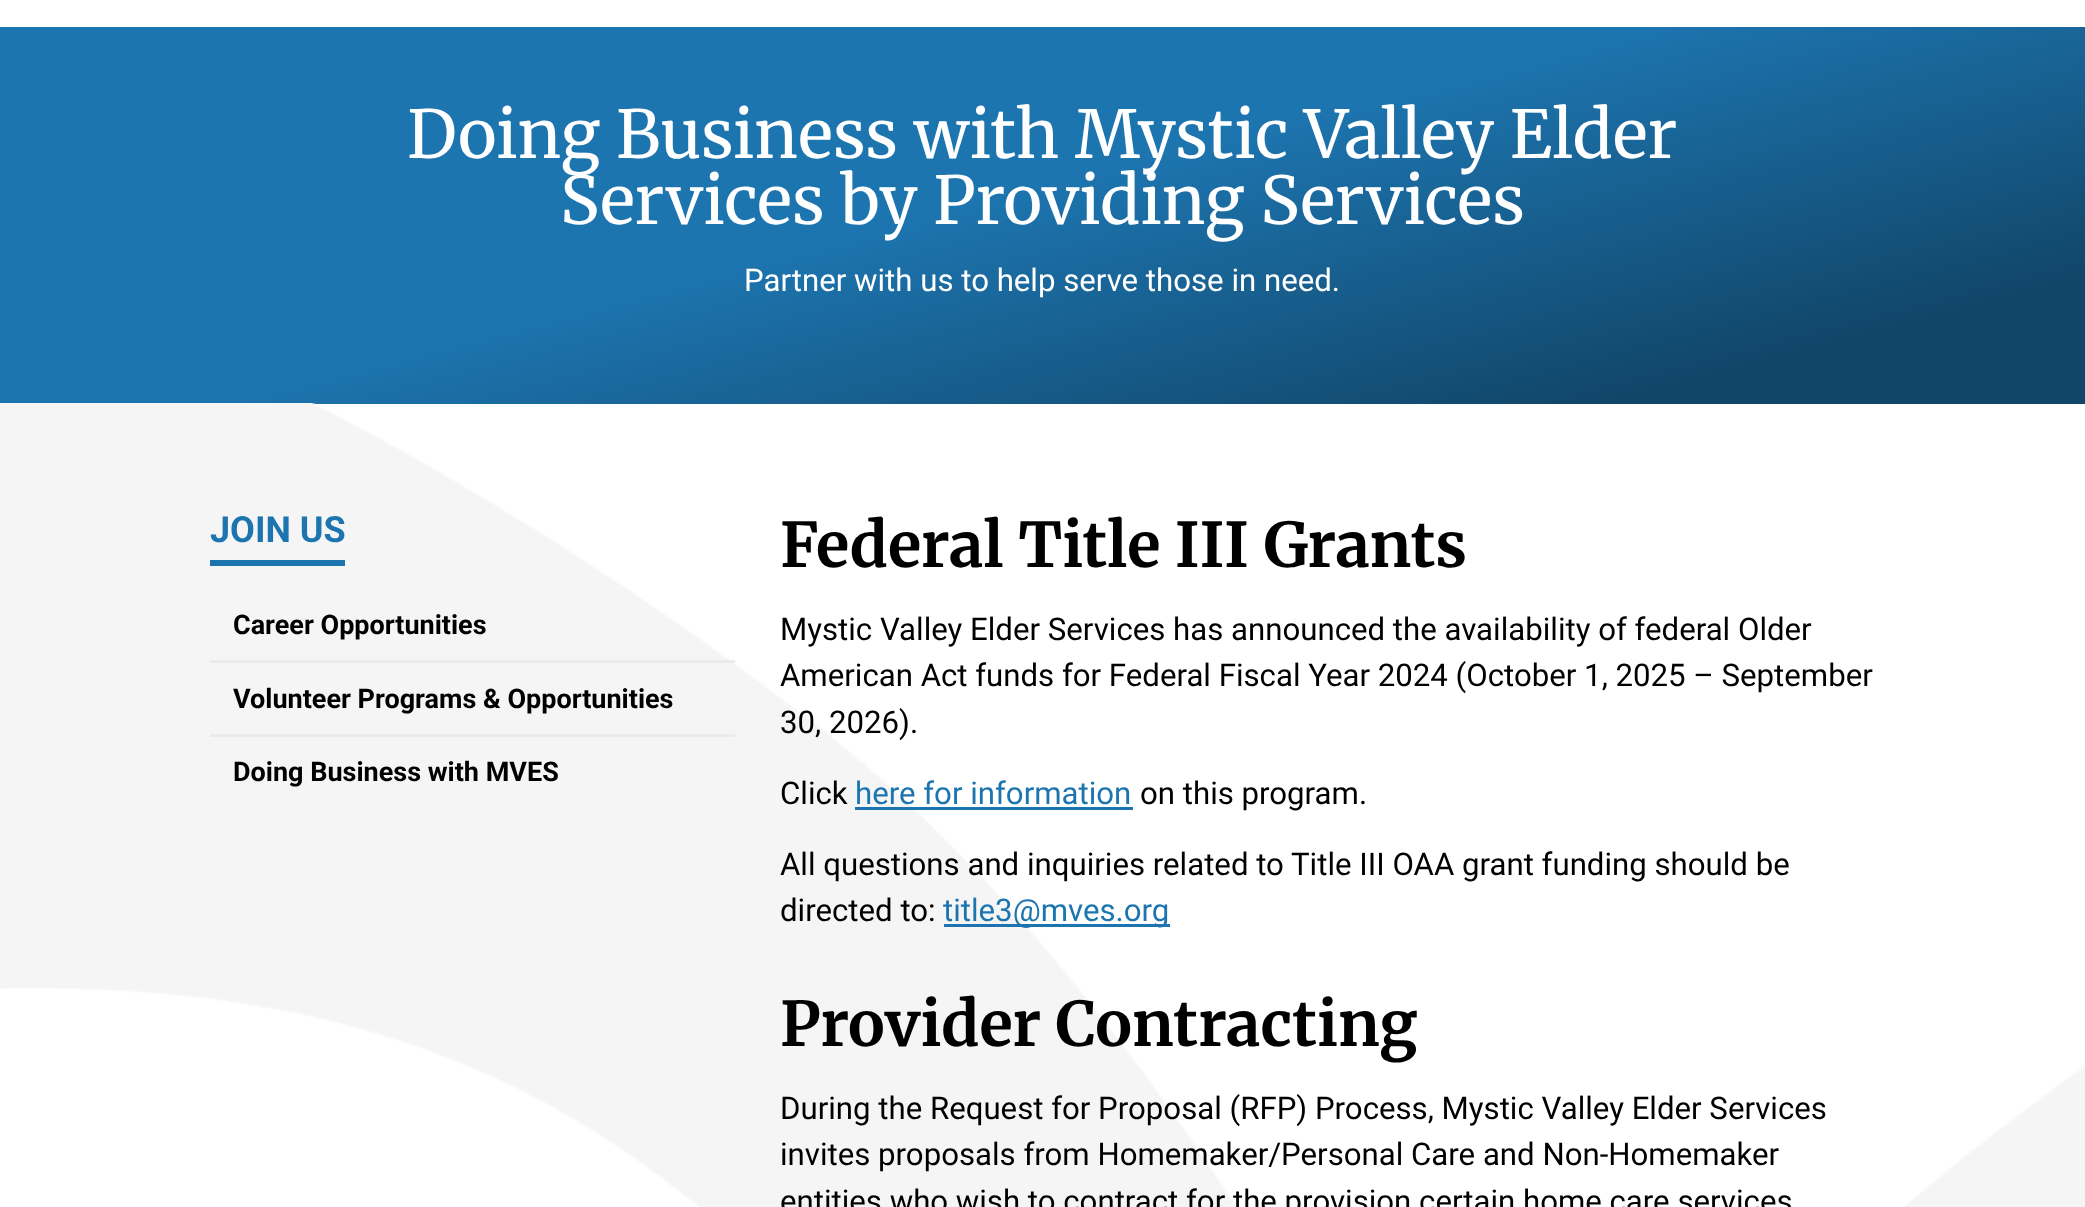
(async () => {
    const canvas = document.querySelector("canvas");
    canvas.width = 2085;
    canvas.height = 1207;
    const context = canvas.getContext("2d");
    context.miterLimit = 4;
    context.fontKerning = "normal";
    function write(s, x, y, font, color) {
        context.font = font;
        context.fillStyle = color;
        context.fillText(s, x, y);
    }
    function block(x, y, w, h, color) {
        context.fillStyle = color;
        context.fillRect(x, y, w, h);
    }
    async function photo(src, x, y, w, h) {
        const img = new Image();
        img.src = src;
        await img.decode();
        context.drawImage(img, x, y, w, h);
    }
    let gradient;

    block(0, 0, 2085, 1207, "rgb(255, 255, 255)");
    gradient = context.createLinearGradient(1155, 647, 930, -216);
    gradient.addColorStop(0.14, "rgb(17, 70, 105)");
    gradient.addColorStop(0.54, "rgb(29, 117, 176)");
    context.fillStyle = gradient;
    context.fillRect(0, 27, 2085, 377);
    write("Doing Business with Mystic Valley Elder", 407, 158, "66px Merriweather", "rgb(255, 255, 255)");
    write("Services by Providing Services", 560, 224, "66px Merriweather", "rgb(255, 255, 255)");
    write("Partner with us to help serve those in need.", 744, 291, "31.2px Roboto", "rgb(255, 255, 255)");
    await photo("media/1.png", 0, 403, 2085, 804);
    block(210, 560, 135, 6, "rgb(29, 117, 176)");
    write("JOIN US", 210, 542, "bold 36px Roboto", "rgb(29, 117, 176)");
    block(210, 660, 525, 3, "rgb(235, 235, 235)");
    write("Career Opportunities", 233, 634, "bold 27px Roboto", "rgb(0, 0, 0)");
    block(210, 734, 525, 3, "rgb(235, 235, 235)");
    write("Volunteer Programs & Opportunities", 233, 708, "bold 27px Roboto", "rgb(0, 0, 0)");
    write("Doing Business with MVES", 233, 781, "bold 27px Roboto", "rgb(0, 0, 0)");
    write("Federal Title III Grants", 780, 567, "bold 61.5px Merriweather", "rgb(0, 0, 0)");
    write("Mystic Valley Elder Services has announced the availability of federal Older", 780, 640, "31.2px Roboto", "rgb(0, 0, 0)");
    write("American Act funds for Federal Fiscal Year 2024 (October 1, 2025 – September", 780, 686, "31.2px Roboto", "rgb(0, 0, 0)");
    write("30, 2026).", 780, 733, "31.2px Roboto", "rgb(0, 0, 0)");
    write("Click", 780, 804, "31.2px Roboto", "rgb(0, 0, 0)");
    write("here for information", 855, 804, "31.2px Roboto", "rgb(29, 117, 176)");
    block(855, 807, 278, 3, "rgb(29, 117, 176)");
    write("on this program.", 1140, 804, "31.2px Roboto", "rgb(0, 0, 0)");
    write("All questions and inquiries related to Title III OAA grant funding should be", 780, 875, "31.2px Roboto", "rgb(0, 0, 0)");
    write("directed to:", 780, 921, "31.2px Roboto", "rgb(0, 0, 0)");
    block(944, 924, 226, 3, "rgb(29, 117, 176)");
    write("title3@mves.org", 943, 921, "31.2px Roboto", "rgb(29, 117, 176)");
    write("Provider Contracting", 780, 1046, "bold 61.5px Merriweather", "rgb(0, 0, 0)");
    write("During the Request for Proposal (RFP) Process, Mystic Valley Elder Services", 780, 1119, "31.2px Roboto", "rgb(0, 0, 0)");
    write("invites proposals from Homemaker/Personal Care and Non-Homemaker", 780, 1165, "31.2px Roboto", "rgb(0, 0, 0)");
    write("entities who wish to contract for the provision certain home care services", 780, 1212, "31.2px Roboto", "rgb(0, 0, 0)");
})();
